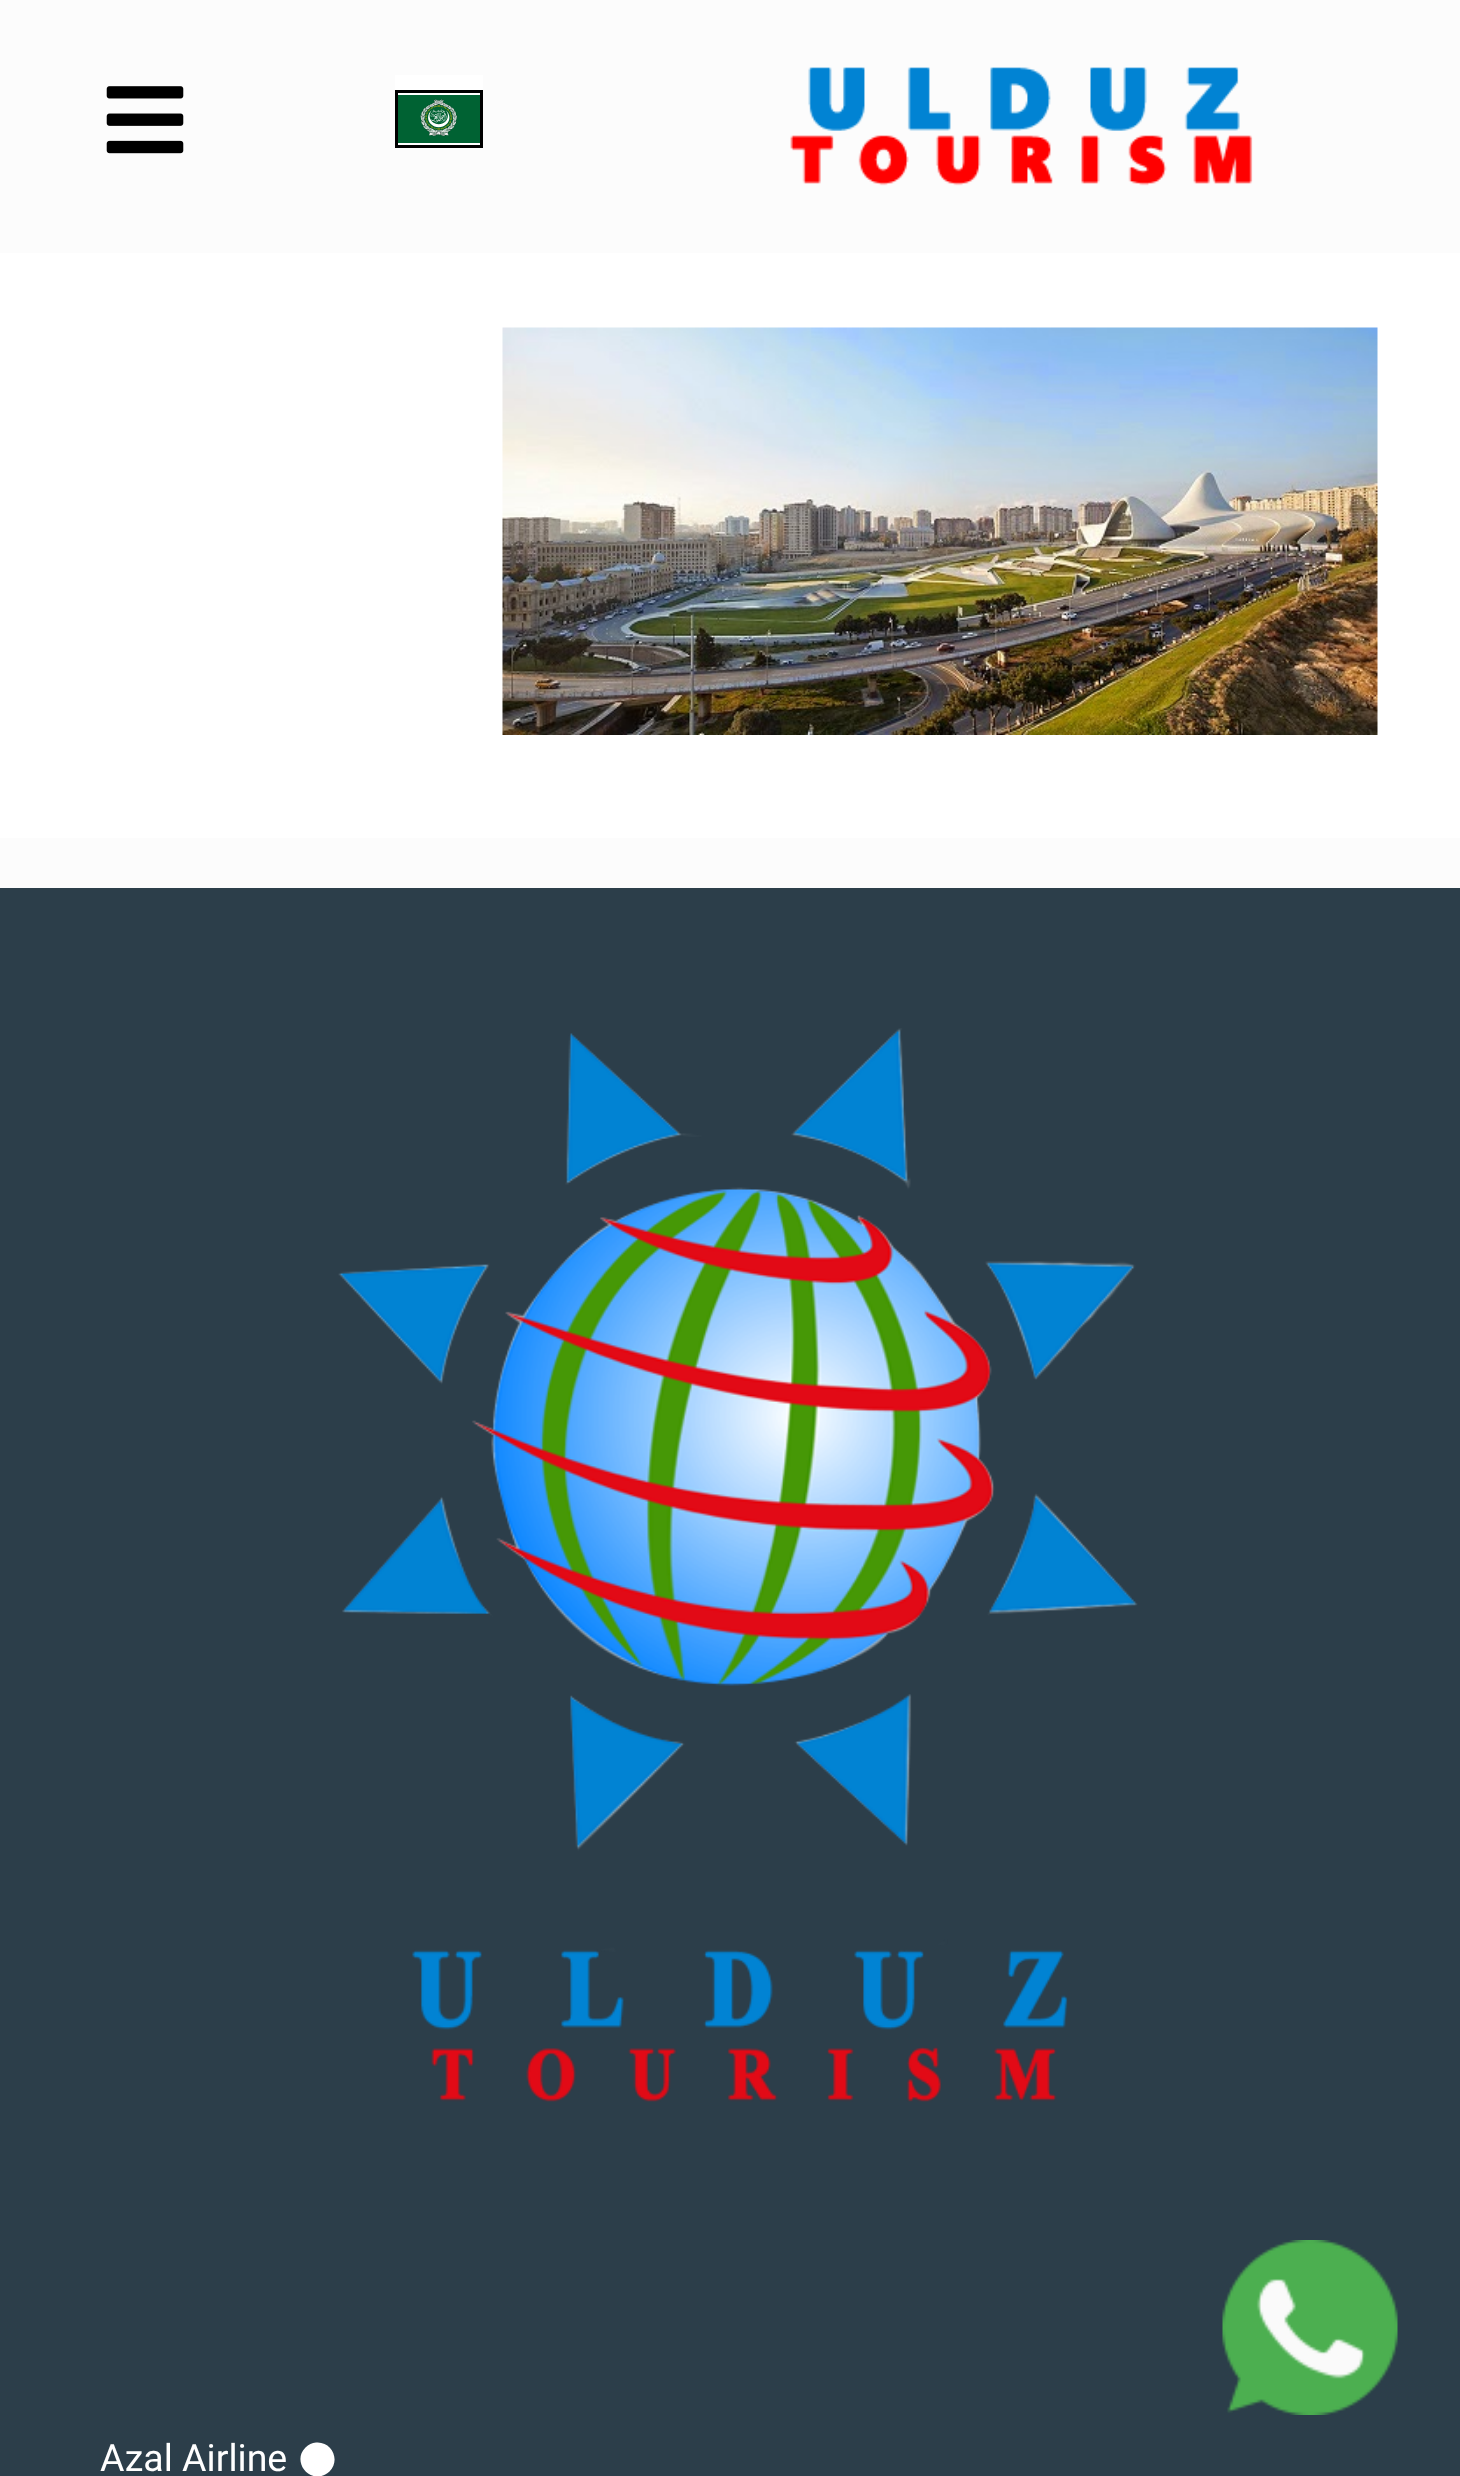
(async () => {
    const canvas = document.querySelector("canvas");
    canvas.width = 1460;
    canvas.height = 2476;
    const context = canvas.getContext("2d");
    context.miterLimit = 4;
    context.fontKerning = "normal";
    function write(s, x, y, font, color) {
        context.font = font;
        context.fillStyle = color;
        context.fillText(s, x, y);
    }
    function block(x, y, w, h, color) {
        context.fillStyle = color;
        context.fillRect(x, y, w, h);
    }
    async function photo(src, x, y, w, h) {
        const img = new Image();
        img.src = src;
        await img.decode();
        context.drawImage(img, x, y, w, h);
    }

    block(0, 0, 1460, 2476, "rgb(252, 252, 252)");
    await photo("media/1.png", 106, 86, 78, 68);
    block(395, 75, 88, 70, "rgb(255, 255, 255)");
    context.strokeStyle = "rgb(0, 0, 0)";
    context.lineWidth = 3;
    context.strokeRect(396.5, 91.5, 85, 55);
    await photo("media/2.png", 398, 95, 82, 48);
    await photo("media/3.png", 790, 67, 463, 119);
    block(0, 253, 1460, 585, "rgb(255, 255, 255)");
    await photo("media/4.png", 502, 327, 876, 408);
    block(0, 888, 1460, 1588, "rgb(44, 62, 74)");
    await photo("media/5.png", 1222, 2240, 176, 175);
    await photo("media/6.png", 338, 1028, 800, 1074);
    write("Azal Airline", 100, 2471, "37.5px Roboto", "rgb(255, 255, 255)");
    context.beginPath();
    context.moveTo(305.5, 2447.5);
    context.bezierCurveTo(308.5, 2444.5, 312, 2443, 316, 2442.5);
    context.bezierCurveTo(331.5, 2441, 341, 2460, 329.5, 2471.5);
    context.bezierCurveTo(326.5, 2474, 323, 2476, 319, 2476.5);
    context.bezierCurveTo(303.5, 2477.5, 294, 2458.5, 305.5, 2447.5);
    context.closePath();
    context.fill();
})();
